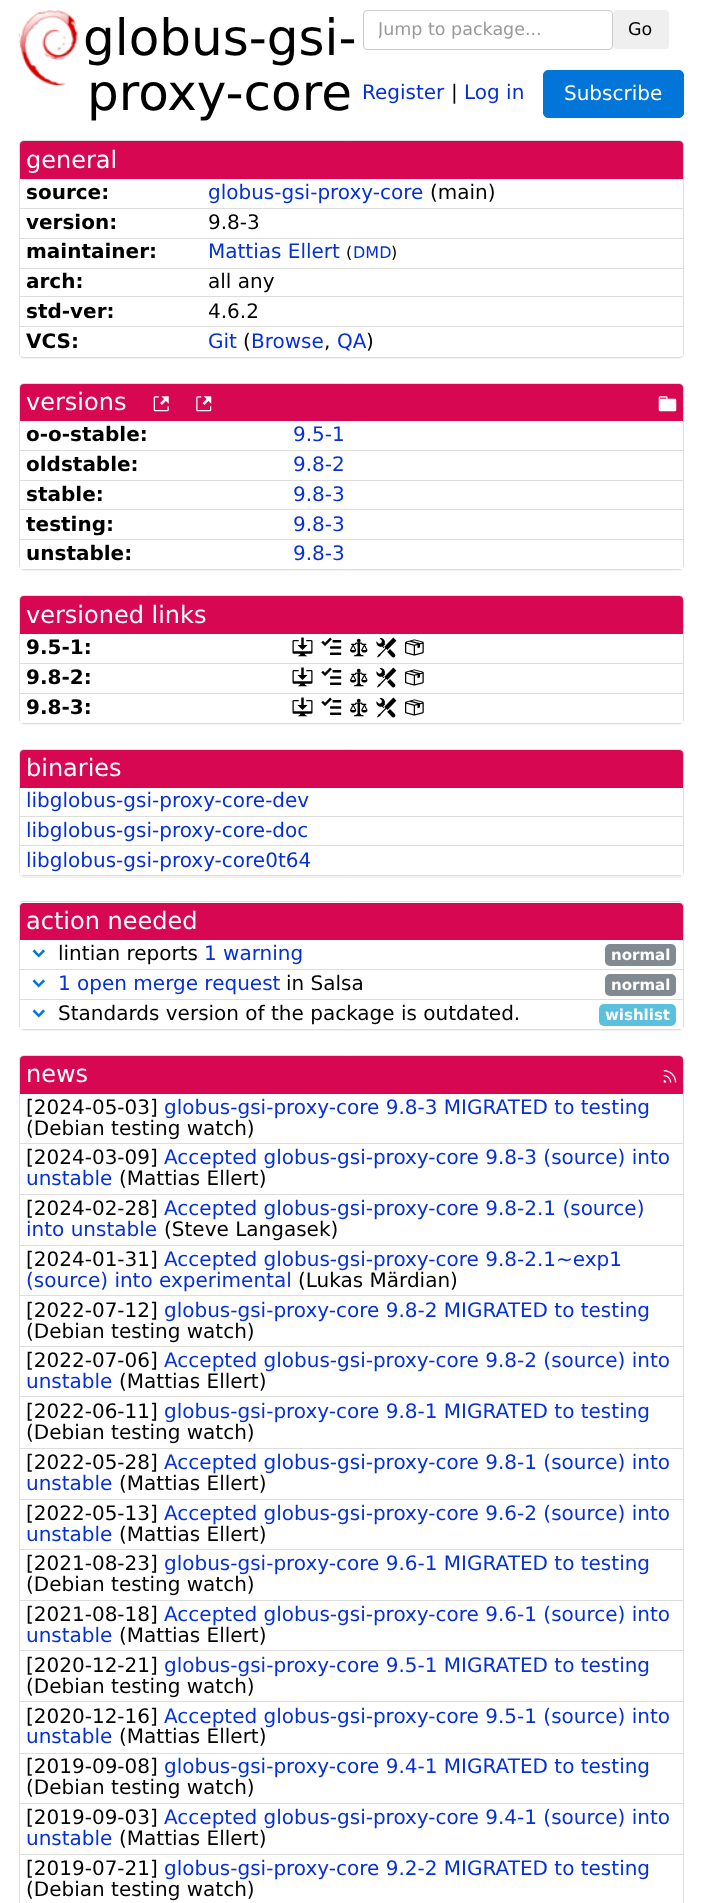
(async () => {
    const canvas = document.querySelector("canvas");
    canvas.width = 702;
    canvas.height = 1903;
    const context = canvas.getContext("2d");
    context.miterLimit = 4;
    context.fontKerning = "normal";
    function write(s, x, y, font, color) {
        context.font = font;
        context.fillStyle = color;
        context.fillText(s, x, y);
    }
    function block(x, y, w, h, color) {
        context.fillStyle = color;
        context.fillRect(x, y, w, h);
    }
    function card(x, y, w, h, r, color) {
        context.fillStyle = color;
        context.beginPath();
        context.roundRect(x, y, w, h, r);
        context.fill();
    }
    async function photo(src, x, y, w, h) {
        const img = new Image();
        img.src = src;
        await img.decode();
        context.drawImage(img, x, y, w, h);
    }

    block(0, 0, 702, 1903, "rgb(255, 255, 255)");
    await photo("media/1.png", 18, 10, 60, 75);
    write("globus-gsi-", 83, 55, "50px DejaVu Sans", "rgb(0, 0, 0)");
    write("proxy-core", 87, 110, "50px DejaVu Sans", "rgb(0, 0, 0)");
    context.beginPath();
    context.roundRect(363.5, 10.5, 249, 39, 3.5);
    context.strokeStyle = "rgb(204, 204, 204)";
    context.stroke();
    context.save();
    context.beginPath();
    context.rect(379, 19, 212, 20);
    context.clip();
    write("Jump to package...", 378, 35, "17.5px DejaVu Sans", "rgb(153, 153, 153)");
    context.restore();
    card(613, 10, 56, 39, 4, "rgb(239, 239, 239)");
    write("Go", 628, 35, "17.5px DejaVu Sans", "rgb(0, 0, 0)");
    write("Register", 362, 99, "20px DejaVu Sans", "rgb(5, 48, 215)");
    write("|", 451, 99, "20px DejaVu Sans", "rgb(0, 0, 0)");
    write("Log in", 464, 99, "20px DejaVu Sans", "rgb(5, 48, 215)");
    context.fillStyle = "rgb(2, 117, 216)";
    context.beginPath();
    context.roundRect(543.5, 70.5, 140, 47, 4.5);
    context.fill();
    context.strokeStyle = "rgb(2, 117, 216)";
    context.stroke();
    write("Subscribe", 564, 100, "20px DejaVu Sans", "rgb(255, 255, 255)");
    context.fillStyle = "rgba(0, 0, 0, 0.05)";
    context.filter = "blur(0.5px)";
    context.beginPath();
    context.roundRect(19, 141, 665, 218, 5);
    context.fill();
    context.filter = "none";
    context.fillStyle = "rgb(255, 255, 255)";
    context.beginPath();
    context.roundRect(19.5, 140.5, 664, 217, 4.5);
    context.fill();
    context.strokeStyle = "rgb(221, 221, 221)";
    context.stroke();
    context.fillStyle = "rgb(215, 7, 81)";
    context.beginPath();
    context.roundRect(20, 141, 663, 39, [4, 4, 0, 0]);
    context.fill();
    write("general", 26, 168, "24px DejaVu Sans", "rgb(255, 255, 255)");
    block(20, 179, 663, 177, "rgb(255, 255, 255)");
    block(20, 208, 663, 1, "rgb(221, 221, 221)");
    write("source:", 26, 199, "bold 20px DejaVu Sans", "rgb(0, 0, 0)");
    write("globus-gsi-proxy-core", 208, 199, "20px DejaVu Sans", "rgb(5, 48, 215)");
    write("(main)", 430, 199, "20px DejaVu Sans", "rgb(0, 0, 0)");
    block(20, 238, 663, 1, "rgb(221, 221, 221)");
    write("version:", 26, 229, "bold 20px DejaVu Sans", "rgb(0, 0, 0)");
    write("9.8-3", 208, 229, "20px DejaVu Sans", "rgb(0, 0, 0)");
    block(20, 268, 663, 1, "rgb(221, 221, 221)");
    write("maintainer:", 26, 258, "bold 20px DejaVu Sans", "rgb(0, 0, 0)");
    write("Mattias Ellert", 208, 258, "20px DejaVu Sans", "rgb(5, 48, 215)");
    write("(", 346, 258, "16px DejaVu Sans", "rgb(0, 0, 0)");
    write("DMD", 353, 258, "16px DejaVu Sans", "rgb(5, 48, 215)");
    write(")", 391, 258, "16px DejaVu Sans", "rgb(0, 0, 0)");
    block(20, 296, 663, 1, "rgb(221, 221, 221)");
    write("arch:", 26, 288, "bold 20px DejaVu Sans", "rgb(0, 0, 0)");
    write("all any", 208, 288, "20px DejaVu Sans", "rgb(0, 0, 0)");
    write("std-ver:", 26, 318, "bold 20px DejaVu Sans", "rgb(0, 0, 0)");
    write("4.6.2", 208, 318, "20px DejaVu Sans", "rgb(0, 0, 0)");
    block(20, 326, 663, 1, "rgb(221, 221, 221)");
    write("VCS:", 26, 348, "bold 20px DejaVu Sans", "rgb(0, 0, 0)");
    write("Git", 208, 348, "20px DejaVu Sans", "rgb(5, 48, 215)");
    write("(", 243, 348, "20px DejaVu Sans", "rgb(0, 0, 0)");
    write("Browse", 251, 348, "20px DejaVu Sans", "rgb(5, 48, 215)");
    write(",", 324, 348, "20px DejaVu Sans", "rgb(0, 0, 0)");
    write("QA", 337, 348, "20px DejaVu Sans", "rgb(5, 48, 215)");
    write(")", 366, 348, "20px DejaVu Sans", "rgb(0, 0, 0)");
    context.fillStyle = "rgba(0, 0, 0, 0.05)";
    context.filter = "blur(0.5px)";
    context.beginPath();
    context.roundRect(19, 384, 665, 187, 5);
    context.fill();
    context.filter = "none";
    context.beginPath();
    context.roundRect(19.5, 383.5, 664, 186, 4.5);
    context.stroke();
    context.fillStyle = "rgb(215, 7, 81)";
    context.beginPath();
    context.roundRect(20, 384, 663, 39, [4, 4, 0, 0]);
    context.fill();
    write("versions", 26, 410, "24px DejaVu Sans", "rgb(255, 255, 255)");
    await photo("media/2.png", 153, 396, 16, 16);
    await photo("media/3.png", 196, 396, 16, 16);
    await photo("media/4.png", 658, 396, 19, 16);
    block(20, 421, 663, 148, "rgb(255, 255, 255)");
    block(20, 450, 663, 1, "rgb(221, 221, 221)");
    write("o-o-stable:", 26, 441, "bold 20px DejaVu Sans", "rgb(0, 0, 0)");
    write("9.5-1", 293, 441, "20px DejaVu Sans", "rgb(5, 48, 215)");
    block(20, 480, 663, 1, "rgb(221, 221, 221)");
    write("oldstable:", 26, 471, "bold 20px DejaVu Sans", "rgb(0, 0, 0)");
    write("9.8-2", 293, 471, "20px DejaVu Sans", "rgb(5, 48, 215)");
    block(20, 509, 663, 1, "rgb(221, 221, 221)");
    write("stable:", 26, 501, "bold 20px DejaVu Sans", "rgb(0, 0, 0)");
    write("9.8-3", 293, 501, "20px DejaVu Sans", "rgb(5, 48, 215)");
    write("testing:", 26, 531, "bold 20px DejaVu Sans", "rgb(0, 0, 0)");
    write("9.8-3", 293, 531, "20px DejaVu Sans", "rgb(5, 48, 215)");
    block(20, 539, 663, 1, "rgb(221, 221, 221)");
    write("unstable:", 26, 560, "bold 20px DejaVu Sans", "rgb(0, 0, 0)");
    write("9.8-3", 293, 560, "20px DejaVu Sans", "rgb(5, 48, 215)");
    context.fillStyle = "rgba(0, 0, 0, 0.05)";
    context.filter = "blur(0.5px)";
    context.beginPath();
    context.roundRect(19, 596, 665, 129, 5);
    context.fill();
    context.filter = "none";
    context.beginPath();
    context.roundRect(19.5, 595.5, 664, 128, 4.5);
    context.stroke();
    context.fillStyle = "rgb(215, 7, 81)";
    context.beginPath();
    context.roundRect(20, 596, 663, 39, [4, 4, 0, 0]);
    context.fill();
    write("versioned links", 26, 623, "24px DejaVu Sans", "rgb(255, 255, 255)");
    block(20, 634, 663, 89, "rgb(255, 255, 255)");
    block(20, 663, 663, 1, "rgb(221, 221, 221)");
    write("9.5-1:", 26, 654, "bold 20px DejaVu Sans", "rgb(0, 0, 0)");
    await photo("media/5.png", 292, 637, 21, 20);
    await photo("media/6.png", 321, 637, 21, 18);
    await photo("media/7.png", 350, 638, 18, 19);
    await photo("media/8.png", 376, 637, 21, 21);
    await photo("media/9.png", 405, 639, 19, 17);
    write("9.8-2:", 26, 684, "bold 20px DejaVu Sans", "rgb(0, 0, 0)");
    await photo("media/5.png", 292, 667, 21, 20);
    await photo("media/6.png", 321, 667, 21, 18);
    await photo("media/7.png", 350, 668, 18, 19);
    await photo("media/8.png", 376, 667, 21, 21);
    await photo("media/9.png", 405, 669, 19, 17);
    block(20, 693, 663, 1, "rgb(221, 221, 221)");
    write("9.8-3:", 26, 714, "bold 20px DejaVu Sans", "rgb(0, 0, 0)");
    await photo("media/5.png", 292, 697, 21, 20);
    await photo("media/6.png", 321, 697, 21, 18);
    await photo("media/7.png", 350, 698, 18, 19);
    await photo("media/8.png", 376, 697, 21, 21);
    await photo("media/9.png", 405, 699, 19, 17);
    context.fillStyle = "rgba(0, 0, 0, 0.05)";
    context.filter = "blur(0.5px)";
    context.beginPath();
    context.roundRect(19, 750, 665, 128, 5);
    context.fill();
    context.filter = "none";
    context.beginPath();
    context.roundRect(19.5, 749.5, 664, 126, 4.5);
    context.stroke();
    context.fillStyle = "rgb(215, 7, 81)";
    context.beginPath();
    context.roundRect(20, 750, 663, 39, [4, 4, 0, 0]);
    context.fill();
    write("binaries", 26, 776, "24px DejaVu Sans", "rgb(255, 255, 255)");
    block(20, 788, 663, 87, "rgb(255, 255, 255)");
    block(20, 816, 663, 1, "rgb(221, 221, 221)");
    write("libglobus-gsi-proxy-core-dev", 26, 807, "20px DejaVu Sans", "rgb(5, 48, 215)");
    write("libglobus-gsi-proxy-core-doc", 26, 837, "20px DejaVu Sans", "rgb(5, 48, 215)");
    block(20, 845, 663, 1, "rgb(221, 221, 221)");
    write("libglobus-gsi-proxy-core0t64", 26, 867, "20px DejaVu Sans", "rgb(5, 48, 215)");
    context.fillStyle = "rgba(0, 0, 0, 0.05)";
    context.filter = "blur(0.5px)";
    context.beginPath();
    context.roundRect(19, 903, 665, 128, 5);
    context.fill();
    context.filter = "none";
    context.fillStyle = "rgb(255, 255, 255)";
    context.beginPath();
    context.roundRect(19.5, 901.5, 664, 128, 4.5);
    context.fill();
    context.stroke();
    context.fillStyle = "rgb(215, 7, 81)";
    context.beginPath();
    context.roundRect(20, 903, 663, 38, [4, 4, 0, 0]);
    context.fill();
    write("action needed", 26, 929, "24px DejaVu Sans", "rgb(255, 255, 255)");
    block(20, 940, 663, 89, "rgb(255, 255, 255)");
    block(20, 969, 663, 1, "rgb(221, 221, 221)");
    await photo("media/10.png", 32, 949, 13, 9);
    write("lintian reports", 58, 960, "20px DejaVu Sans", "rgb(0, 0, 0)");
    write("1 warning", 204, 960, "20px DejaVu Sans", "rgb(5, 48, 215)");
    card(605, 944, 71, 22, 5, "rgb(129, 138, 145)");
    write("normal", 611, 960, "bold 15px DejaVu Sans", "rgb(255, 255, 255)");
    await photo("media/10.png", 32, 979, 13, 9);
    write("1 open merge request", 58, 990, "20px DejaVu Sans", "rgb(5, 48, 215)");
    write("in Salsa", 286, 990, "20px DejaVu Sans", "rgb(0, 0, 0)");
    card(605, 974, 71, 22, 5, "rgb(129, 138, 145)");
    write("normal", 611, 990, "bold 15px DejaVu Sans", "rgb(255, 255, 255)");
    block(20, 999, 663, 1, "rgb(221, 221, 221)");
    await photo("media/10.png", 32, 1009, 13, 9);
    write("Standards version of the package is outdated.", 58, 1020, "20px DejaVu Sans", "rgb(0, 0, 0)");
    card(599, 1004, 77, 22, 5, "rgb(91, 192, 222)");
    write("wishlist", 605, 1020, "bold 15px DejaVu Sans", "rgb(255, 255, 255)");
    context.beginPath();
    context.roundRect(19.5, 1055.5, 664, 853, 4.5);
    context.stroke();
    context.fillStyle = "rgb(215, 7, 81)";
    context.beginPath();
    context.roundRect(20, 1056, 663, 39, [4, 4, 0, 0]);
    context.fill();
    write("news", 26, 1082, "24px DejaVu Sans", "rgb(255, 255, 255)");
    await photo("media/11.png", 663, 1070, 14, 13);
    block(20, 1094, 663, 1, "rgb(255, 255, 255)");
    block(20, 1143, 663, 1, "rgb(221, 221, 221)");
    write("[2024-05-03]", 26, 1114, "20px DejaVu Sans", "rgb(0, 0, 0)");
    write("globus-gsi-proxy-core 9.8-3 MIGRATED to testing", 164, 1114, "20px DejaVu Sans", "rgb(5, 48, 215)");
    write("(Debian testing watch)", 26, 1135, "20px DejaVu Sans", "rgb(0, 0, 0)");
    block(20, 1194, 663, 1, "rgb(221, 221, 221)");
    write("[2024-03-09]", 26, 1164, "20px DejaVu Sans", "rgb(0, 0, 0)");
    write("Accepted globus-gsi-proxy-core 9.8-3 (source) into", 164, 1164, "20px DejaVu Sans", "rgb(5, 48, 215)");
    write("unstable", 26, 1185, "20px DejaVu Sans", "rgb(5, 48, 215)");
    write("(Mattias Ellert)", 119, 1185, "20px DejaVu Sans", "rgb(0, 0, 0)");
    block(20, 1245, 663, 1, "rgb(221, 221, 221)");
    write("[2024-02-28]", 26, 1215, "20px DejaVu Sans", "rgb(0, 0, 0)");
    write("Accepted globus-gsi-proxy-core 9.8-2.1 (source)", 164, 1215, "20px DejaVu Sans", "rgb(5, 48, 215)");
    write("into unstable", 26, 1236, "20px DejaVu Sans", "rgb(5, 48, 215)");
    write("(Steve Langasek)", 164, 1236, "20px DejaVu Sans", "rgb(0, 0, 0)");
    block(20, 1295, 663, 1, "rgb(221, 221, 221)");
    write("[2024-01-31]", 26, 1266, "20px DejaVu Sans", "rgb(0, 0, 0)");
    write("Accepted globus-gsi-proxy-core 9.8-2.1~exp1", 164, 1266, "20px DejaVu Sans", "rgb(5, 48, 215)");
    write("(source) into experimental", 26, 1287, "20px DejaVu Sans", "rgb(5, 48, 215)");
    write("(Lukas Märdian)", 298, 1287, "20px DejaVu Sans", "rgb(0, 0, 0)");
    block(20, 1346, 663, 1, "rgb(221, 221, 221)");
    write("[2022-07-12]", 26, 1317, "20px DejaVu Sans", "rgb(0, 0, 0)");
    write("globus-gsi-proxy-core 9.8-2 MIGRATED to testing", 164, 1317, "20px DejaVu Sans", "rgb(5, 48, 215)");
    write("(Debian testing watch)", 26, 1338, "20px DejaVu Sans", "rgb(0, 0, 0)");
    block(20, 1396, 663, 1, "rgb(221, 221, 221)");
    write("[2022-07-06]", 26, 1367, "20px DejaVu Sans", "rgb(0, 0, 0)");
    write("Accepted globus-gsi-proxy-core 9.8-2 (source) into", 164, 1367, "20px DejaVu Sans", "rgb(5, 48, 215)");
    write("unstable", 26, 1388, "20px DejaVu Sans", "rgb(5, 48, 215)");
    write("(Mattias Ellert)", 119, 1388, "20px DejaVu Sans", "rgb(0, 0, 0)");
    block(20, 1448, 663, 1, "rgb(221, 221, 221)");
    write("[2022-06-11]", 26, 1418, "20px DejaVu Sans", "rgb(0, 0, 0)");
    write("globus-gsi-proxy-core 9.8-1 MIGRATED to testing", 164, 1418, "20px DejaVu Sans", "rgb(5, 48, 215)");
    write("(Debian testing watch)", 26, 1439, "20px DejaVu Sans", "rgb(0, 0, 0)");
    block(20, 1499, 663, 1, "rgb(221, 221, 221)");
    write("[2022-05-28]", 26, 1469, "20px DejaVu Sans", "rgb(0, 0, 0)");
    write("Accepted globus-gsi-proxy-core 9.8-1 (source) into", 164, 1469, "20px DejaVu Sans", "rgb(5, 48, 215)");
    write("unstable", 26, 1490, "20px DejaVu Sans", "rgb(5, 48, 215)");
    write("(Mattias Ellert)", 119, 1490, "20px DejaVu Sans", "rgb(0, 0, 0)");
    block(20, 1549, 663, 1, "rgb(221, 221, 221)");
    write("[2022-05-13]", 26, 1520, "20px DejaVu Sans", "rgb(0, 0, 0)");
    write("Accepted globus-gsi-proxy-core 9.6-2 (source) into", 164, 1520, "20px DejaVu Sans", "rgb(5, 48, 215)");
    write("unstable", 26, 1541, "20px DejaVu Sans", "rgb(5, 48, 215)");
    write("(Mattias Ellert)", 119, 1541, "20px DejaVu Sans", "rgb(0, 0, 0)");
    block(20, 1600, 663, 1, "rgb(221, 221, 221)");
    write("[2021-08-23]", 26, 1570, "20px DejaVu Sans", "rgb(0, 0, 0)");
    write("globus-gsi-proxy-core 9.6-1 MIGRATED to testing", 164, 1570, "20px DejaVu Sans", "rgb(5, 48, 215)");
    write("(Debian testing watch)", 26, 1591, "20px DejaVu Sans", "rgb(0, 0, 0)");
    block(20, 1650, 663, 1, "rgb(221, 221, 221)");
    write("[2021-08-18]", 26, 1621, "20px DejaVu Sans", "rgb(0, 0, 0)");
    write("Accepted globus-gsi-proxy-core 9.6-1 (source) into", 164, 1621, "20px DejaVu Sans", "rgb(5, 48, 215)");
    write("unstable", 26, 1642, "20px DejaVu Sans", "rgb(5, 48, 215)");
    write("(Mattias Ellert)", 119, 1642, "20px DejaVu Sans", "rgb(0, 0, 0)");
    block(20, 1701, 663, 1, "rgb(221, 221, 221)");
    write("[2020-12-21]", 26, 1672, "20px DejaVu Sans", "rgb(0, 0, 0)");
    write("globus-gsi-proxy-core 9.5-1 MIGRATED to testing", 164, 1672, "20px DejaVu Sans", "rgb(5, 48, 215)");
    write("(Debian testing watch)", 26, 1693, "20px DejaVu Sans", "rgb(0, 0, 0)");
    block(20, 1753, 663, 1, "rgb(221, 221, 221)");
    write("[2020-12-16]", 26, 1723, "20px DejaVu Sans", "rgb(0, 0, 0)");
    write("Accepted globus-gsi-proxy-core 9.5-1 (source) into", 164, 1723, "20px DejaVu Sans", "rgb(5, 48, 215)");
    write("unstable", 26, 1743, "20px DejaVu Sans", "rgb(5, 48, 215)");
    write("(Mattias Ellert)", 119, 1743, "20px DejaVu Sans", "rgb(0, 0, 0)");
    block(20, 1803, 663, 1, "rgb(221, 221, 221)");
    write("[2019-09-08]", 26, 1773, "20px DejaVu Sans", "rgb(0, 0, 0)");
    write("globus-gsi-proxy-core 9.4-1 MIGRATED to testing", 164, 1773, "20px DejaVu Sans", "rgb(5, 48, 215)");
    write("(Debian testing watch)", 26, 1794, "20px DejaVu Sans", "rgb(0, 0, 0)");
    block(20, 1854, 663, 1, "rgb(221, 221, 221)");
    write("[2019-09-03]", 26, 1824, "20px DejaVu Sans", "rgb(0, 0, 0)");
    write("Accepted globus-gsi-proxy-core 9.4-1 (source) into", 164, 1824, "20px DejaVu Sans", "rgb(5, 48, 215)");
    write("unstable", 26, 1845, "20px DejaVu Sans", "rgb(5, 48, 215)");
    write("(Mattias Ellert)", 119, 1845, "20px DejaVu Sans", "rgb(0, 0, 0)");
    write("[2019-07-21]", 26, 1875, "20px DejaVu Sans", "rgb(0, 0, 0)");
    write("globus-gsi-proxy-core 9.2-2 MIGRATED to testing", 164, 1875, "20px DejaVu Sans", "rgb(5, 48, 215)");
    write("(Debian testing watch)", 26, 1896, "20px DejaVu Sans", "rgb(0, 0, 0)");
})();
